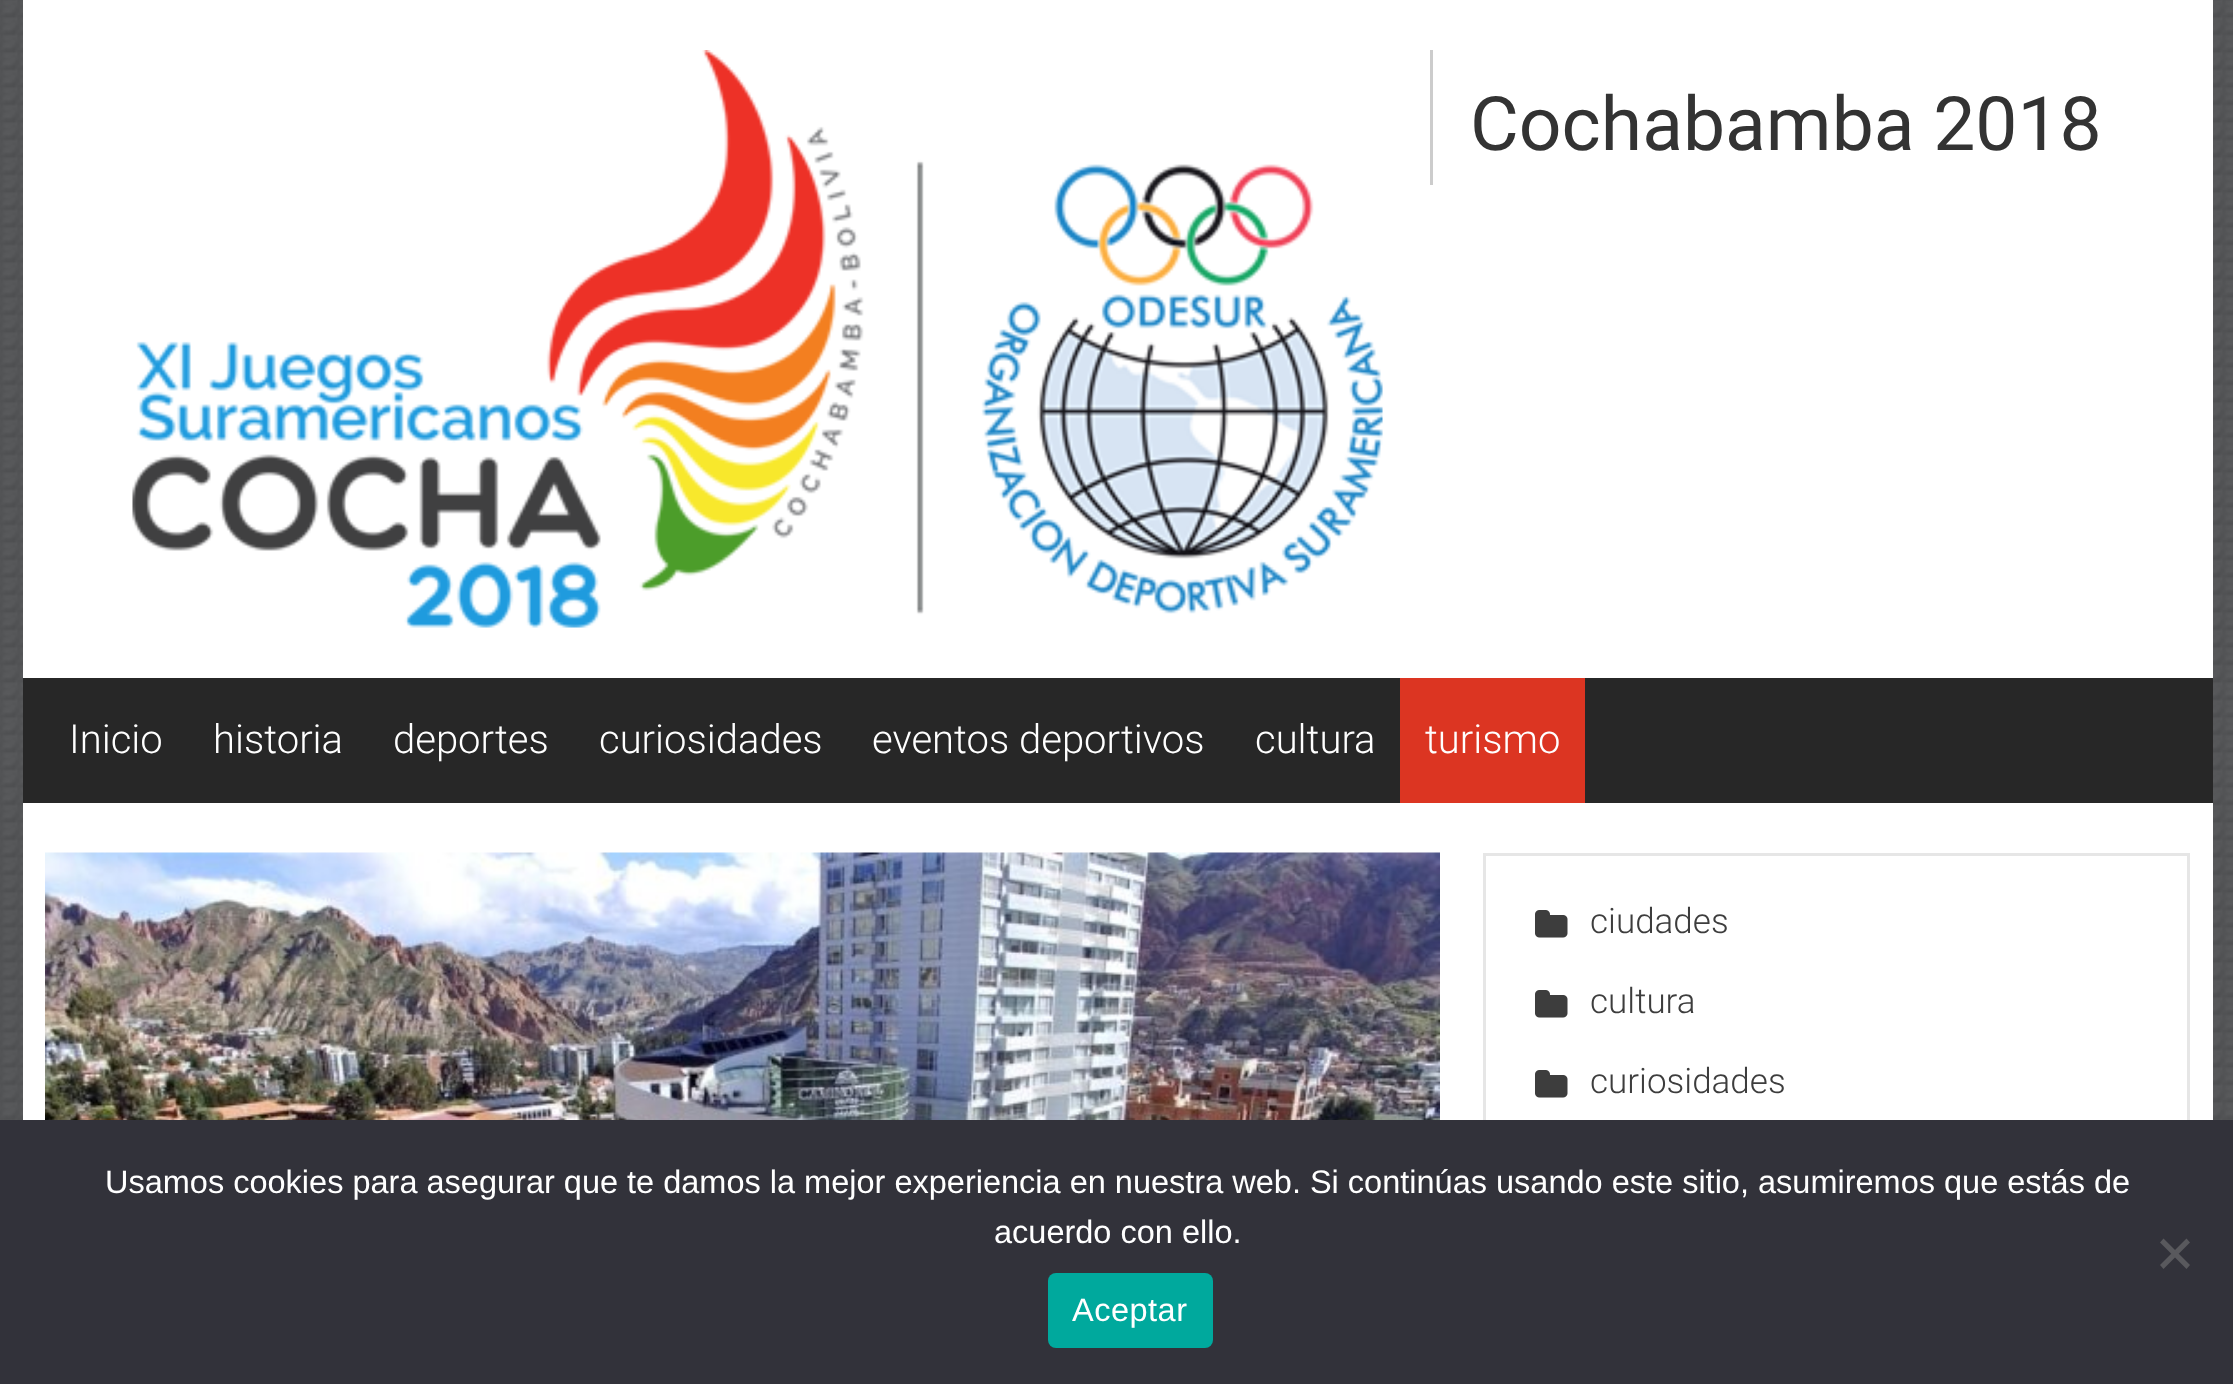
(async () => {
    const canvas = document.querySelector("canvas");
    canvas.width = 2233;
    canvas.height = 1384;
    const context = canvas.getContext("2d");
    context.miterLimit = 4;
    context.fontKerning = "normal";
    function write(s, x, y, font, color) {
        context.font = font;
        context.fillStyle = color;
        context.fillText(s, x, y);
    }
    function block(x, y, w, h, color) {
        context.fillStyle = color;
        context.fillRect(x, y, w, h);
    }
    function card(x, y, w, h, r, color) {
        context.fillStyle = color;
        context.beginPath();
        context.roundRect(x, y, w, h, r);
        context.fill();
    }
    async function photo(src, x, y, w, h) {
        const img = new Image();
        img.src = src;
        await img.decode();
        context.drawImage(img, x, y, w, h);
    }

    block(0, 0, 2233, 1384, "rgb(255, 255, 255)");
    await photo("media/1.png", 0, 0, 2233, 1120);
    block(23, 0, 2190, 1120, "rgb(255, 255, 255)");
    await photo("media/2.png", 132, 50, 1251, 578);
    block(1430, 50, 3, 135, "rgb(204, 204, 204)");
    write("Cochabamba 2018", 1470, 150, "75px Roboto", "rgb(51, 51, 51)");
    block(23, 678, 2190, 125, "rgb(39, 39, 39)");
    write("Inicio", 69, 753, "300 40px Roboto", "rgb(255, 255, 255)");
    write("historia", 213, 753, "300 40px Roboto", "rgb(255, 255, 255)");
    write("deportes", 393, 753, "300 40px Roboto", "rgb(255, 255, 255)");
    write("curiosidades", 599, 753, "300 40px Roboto", "rgb(255, 255, 255)");
    write("eventos deportivos", 872, 753, "300 40px Roboto", "rgb(255, 255, 255)");
    write("cultura", 1255, 753, "300 40px Roboto", "rgb(255, 255, 255)");
    block(1400, 678, 185, 125, "rgb(220, 53, 34)");
    write("turismo", 1425, 753, "300 40px Roboto", "rgb(255, 255, 255)");
    await photo("media/3.png", 45, 852, 1395, 268);
    context.strokeStyle = "rgb(230, 230, 230)";
    context.lineWidth = 3;
    context.strokeRect(1484.5, 854.5, 704, 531);
    await photo("media/4.png", 1535, 910, 33, 28);
    write("ciudades", 1590, 933, "300 35px Roboto", "rgb(61, 61, 61)");
    await photo("media/4.png", 1535, 990, 33, 28);
    write("cultura", 1590, 1013, "300 35px Roboto", "rgb(61, 61, 61)");
    await photo("media/4.png", 1535, 1070, 33, 28);
    write("curiosidades", 1590, 1093, "300 35px Roboto", "rgb(61, 61, 61)");
    block(0, 1120, 2233, 264, "rgb(50, 50, 58)");
    write("Usamos cookies para asegurar que te damos la mejor experiencia en nuestra web. Si continúas usando este sitio, asumiremos que estás de", 105, 1193, "32.5px Liberation Sans", "rgb(255, 255, 255)");
    write("acuerdo con ello.", 994, 1243, "32.5px Liberation Sans", "rgb(255, 255, 255)");
    context.fillStyle = "rgb(89, 89, 93)";
    context.beginPath();
    context.moveTo(2186.5, 1238.5);
    context.lineTo(2190, 1242.5);
    context.lineTo(2163.5, 1269);
    context.lineTo(2160, 1265);
    context.closePath();
    context.fill();
    context.beginPath();
    context.moveTo(2160, 1242.5);
    context.lineTo(2163.5, 1238.5);
    context.lineTo(2190, 1265);
    context.lineTo(2186.5, 1269);
    context.closePath();
    context.fill();
    card(1048, 1273, 165, 75, 8, "rgb(0, 169, 157)");
    context.letterSpacing = "0.5px";
    write("Aceptar", 1072, 1321, "32.5px Liberation Sans", "rgb(255, 255, 255)");
})();
